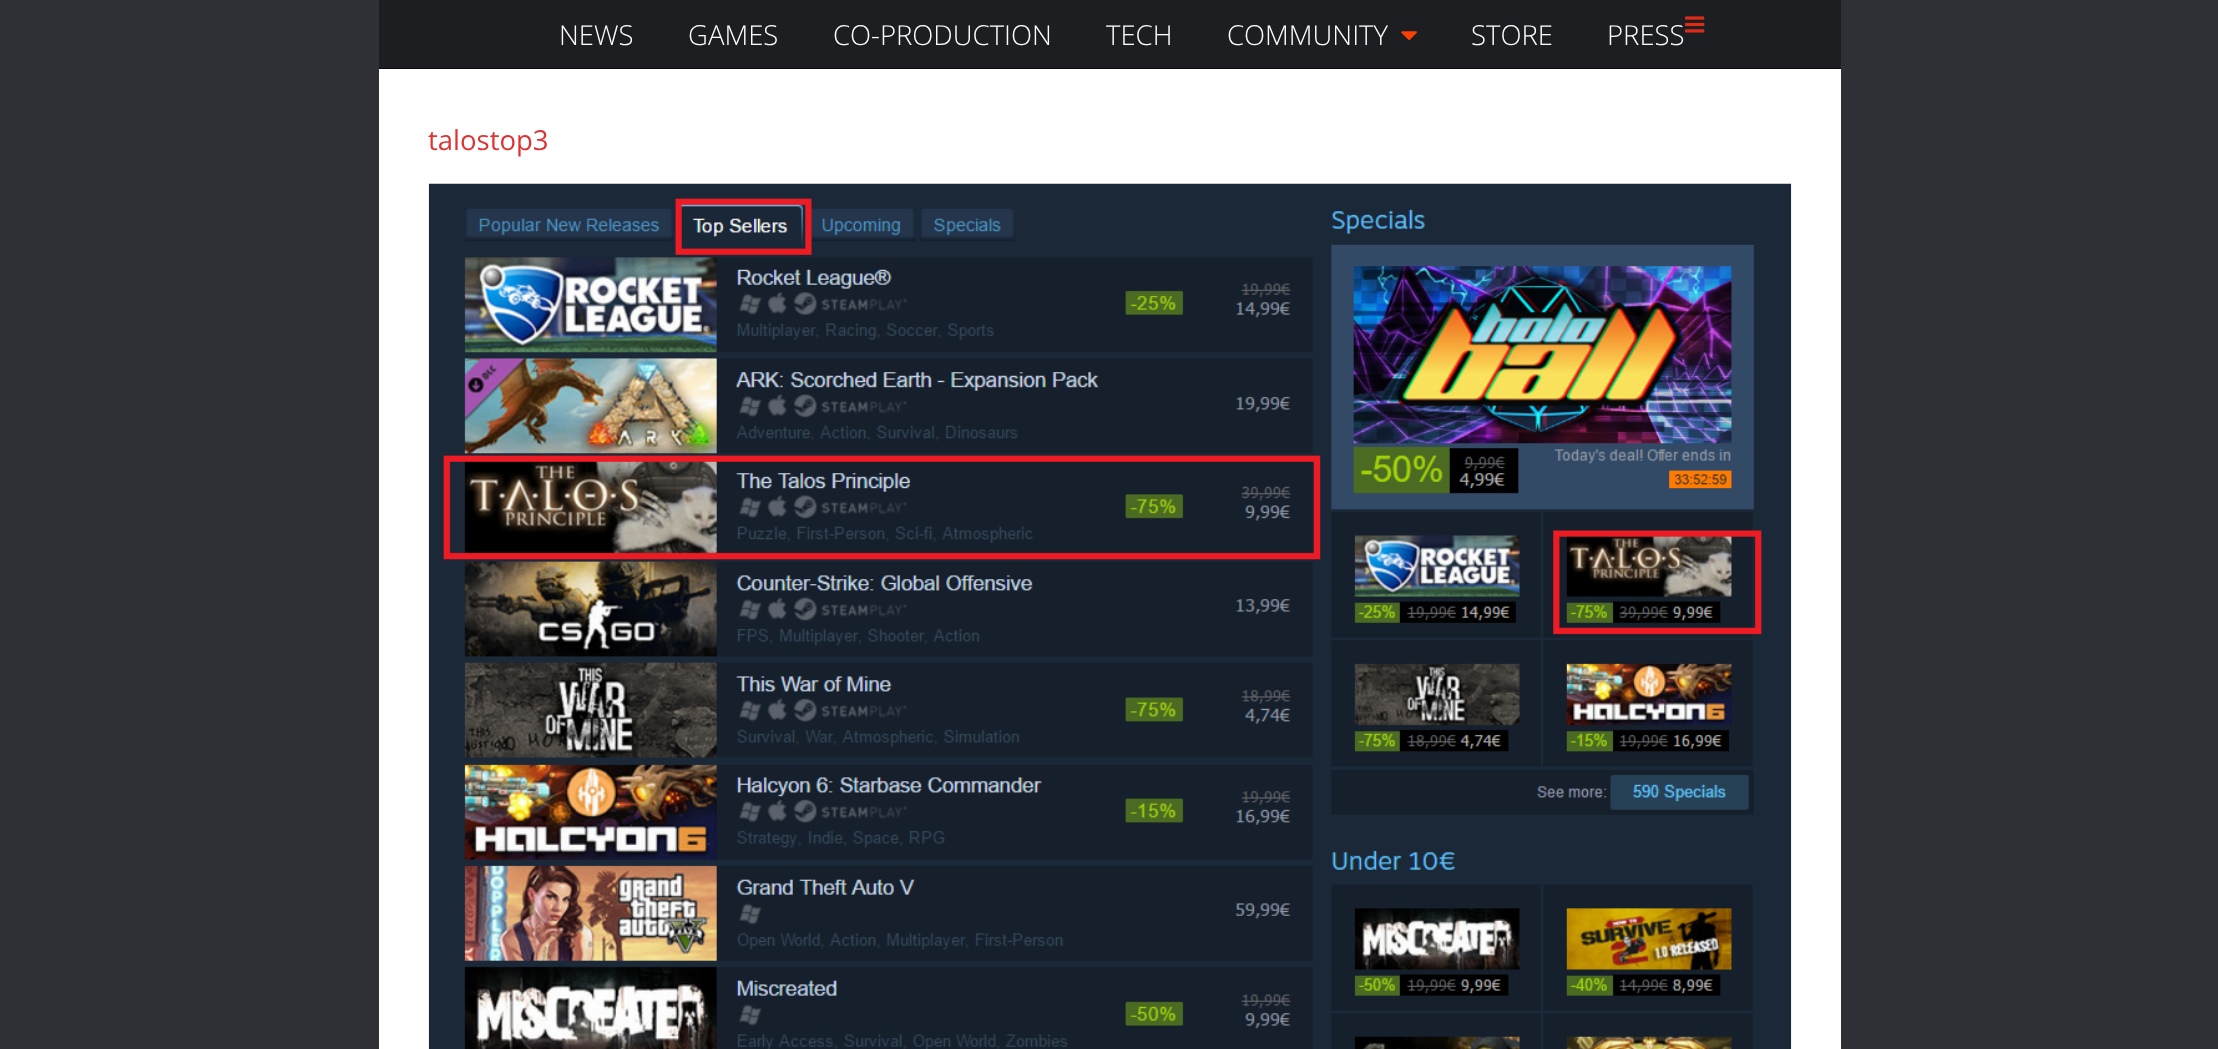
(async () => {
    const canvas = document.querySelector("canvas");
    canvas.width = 2218;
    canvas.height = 1049;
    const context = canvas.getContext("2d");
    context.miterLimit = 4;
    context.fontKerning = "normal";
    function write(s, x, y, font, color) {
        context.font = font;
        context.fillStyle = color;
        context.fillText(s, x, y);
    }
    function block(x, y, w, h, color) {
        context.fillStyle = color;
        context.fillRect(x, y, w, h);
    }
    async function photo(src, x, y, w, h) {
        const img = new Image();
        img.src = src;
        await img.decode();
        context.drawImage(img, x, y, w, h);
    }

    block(0, 0, 2218, 1049, "rgb(46, 48, 53)");
    block(379, 69, 1462, 980, "rgb(255, 255, 255)");
    block(379, 0, 1462, 68, "rgb(29, 30, 33)");
    block(379, 68, 1462, 1, "rgb(10, 10, 10)");
    write("NEWS", 559, 45, "300 27.5px Open Sans", "rgb(255, 255, 255)");
    write("GAMES", 688, 45, "300 27.5px Open Sans", "rgb(255, 255, 255)");
    write("CO-PRODUCTION", 833, 45, "300 27.5px Open Sans", "rgb(255, 255, 255)");
    write("TECH", 1106, 45, "300 27.5px Open Sans", "rgb(255, 255, 255)");
    write("COMMUNITY", 1227, 45, "300 27.5px Open Sans", "rgb(255, 255, 255)");
    await photo("media/1.png", 1401, 31, 16, 10);
    write("STORE", 1471, 45, "300 27.5px Open Sans", "rgb(255, 255, 255)");
    write("PRESS", 1607, 45, "300 27.5px Open Sans", "rgb(255, 255, 255)");
    await photo("media/2.png", 1685, 16, 20, 17);
    write("talostop3", 428, 150, "27.5px Open Sans", "rgb(221, 51, 51)");
    await photo("media/3.png", 428, 183, 1364, 866);
})();
